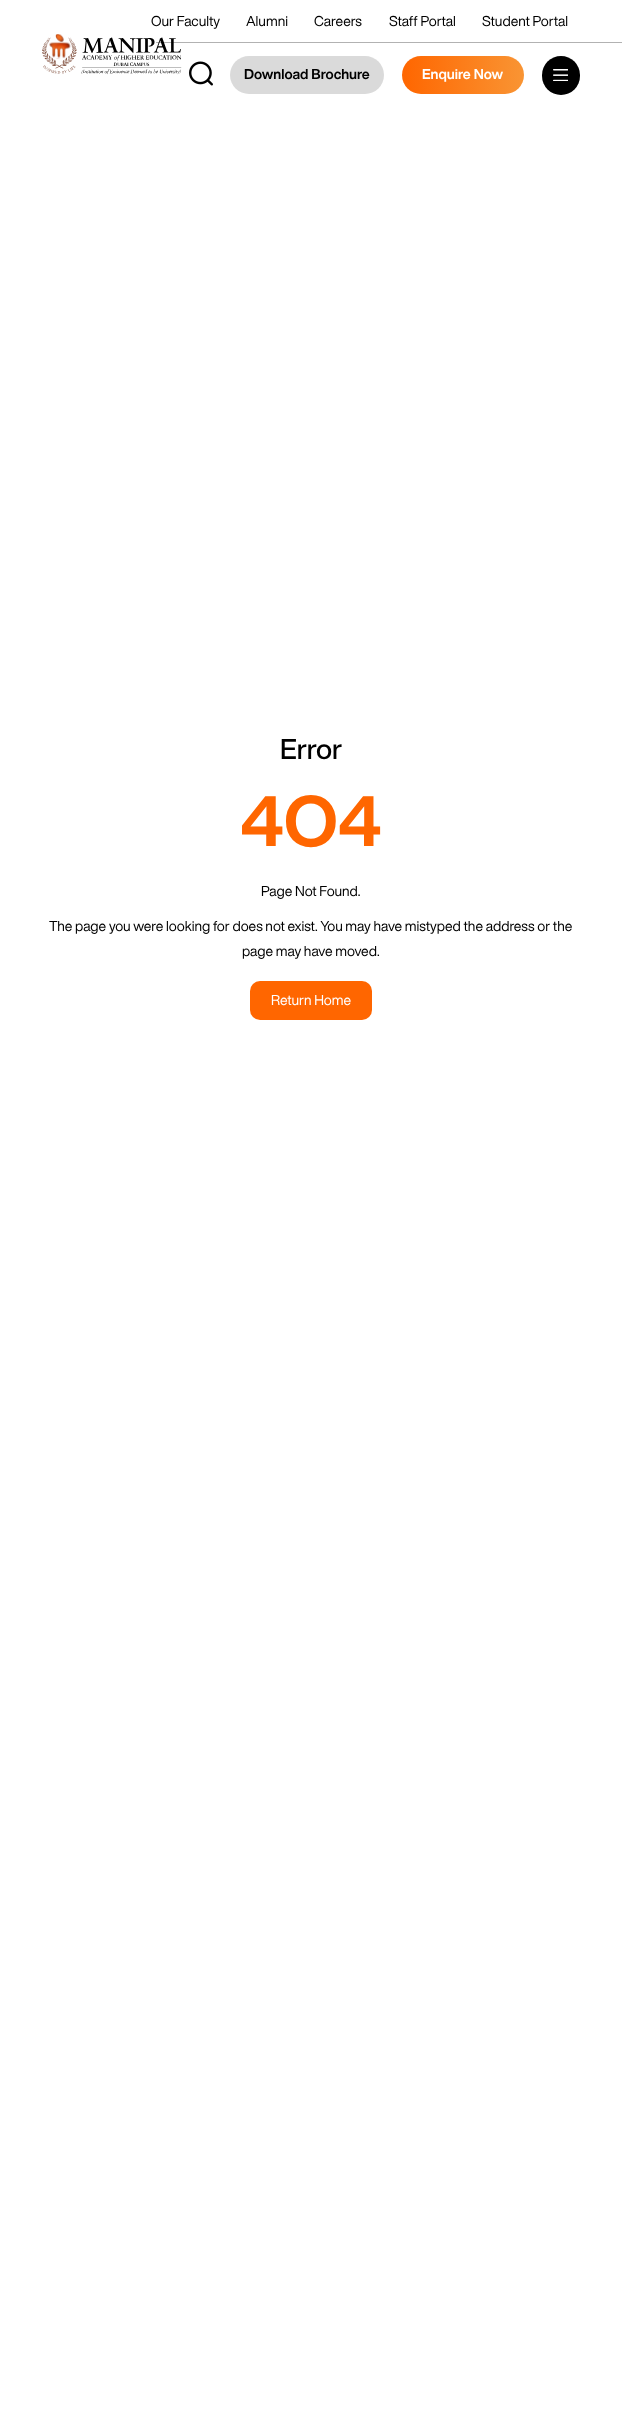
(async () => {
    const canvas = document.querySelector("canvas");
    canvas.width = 622;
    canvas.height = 2430;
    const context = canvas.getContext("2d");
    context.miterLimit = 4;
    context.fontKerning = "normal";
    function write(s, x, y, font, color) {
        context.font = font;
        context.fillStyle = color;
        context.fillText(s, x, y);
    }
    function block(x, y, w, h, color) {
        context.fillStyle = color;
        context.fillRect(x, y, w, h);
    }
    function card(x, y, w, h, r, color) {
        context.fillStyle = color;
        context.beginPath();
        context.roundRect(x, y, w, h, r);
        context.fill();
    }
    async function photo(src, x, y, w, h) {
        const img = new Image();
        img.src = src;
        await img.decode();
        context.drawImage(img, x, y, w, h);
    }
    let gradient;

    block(0, 0, 622, 2430, "rgb(255, 255, 255)");
    write("Our Faculty", 151, 26, "14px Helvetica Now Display", "rgb(0, 0, 0)");
    write("Alumni", 246, 26, "14px Helvetica Now Display", "rgb(0, 0, 0)");
    write("Careers", 314, 26, "14px Helvetica Now Display", "rgb(0, 0, 0)");
    write("Staff Portal", 389, 26, "14px Helvetica Now Display", "rgb(0, 0, 0)");
    write("Student Portal", 482, 26, "14px Helvetica Now Display", "rgb(0, 0, 0)");
    await photo("media/1.png", 42, 34, 140, 41);
    block(156, 42, 466, 1, "rgba(0, 0, 0, 0.3)");
    await photo("media/2.png", 189, 61, 24, 25);
    card(230, 56, 154, 38, 19, "rgb(218, 218, 218)");
    write("Download Brochure", 244, 79, "bold 14px Helvetica Now Display", "rgb(0, 0, 0)");
    gradient = context.createLinearGradient(402, 75, 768, 75);
    gradient.addColorStop(0, "rgb(255, 102, 0)");
    gradient.addColorStop(0.33, "rgb(249, 148, 51)");
    gradient.addColorStop(0.67, "rgb(249, 148, 51)");
    gradient.addColorStop(1, "rgb(255, 102, 0)");
    context.fillStyle = gradient;
    context.beginPath();
    context.roundRect(402, 56, 122, 38, 19);
    context.fill();
    write("Enquire Now", 422, 79, "bold 14px Helvetica Now Display", "rgb(255, 255, 255)");
    card(542, 56, 38, 39, 19, "rgb(0, 0, 0)");
    await photo("media/3.png", 553, 69, 15, 12);
    write("Error", 280, 759, "500 28px Helvetica Now Display", "rgb(0, 0, 0)");
    write("4O4", 240, 846, "bold 70px Helvetica Now Display", "rgb(255, 102, 0)");
    write("Page Not Found.", 261, 896, "14px Helvetica Now Display", "rgb(0, 0, 0)");
    write("The page you were looking for does not exist. You may have mistyped the address or the", 49, 931, "14px Helvetica Now Display", "rgb(0, 0, 0)");
    write("page may have moved.", 242, 956, "14px Helvetica Now Display", "rgb(0, 0, 0)");
    card(250, 981, 122, 39, 10, "rgb(255, 102, 0)");
    write("Return Home", 271, 1005, "14px Helvetica Now Display", "rgb(255, 255, 255)");
})();
